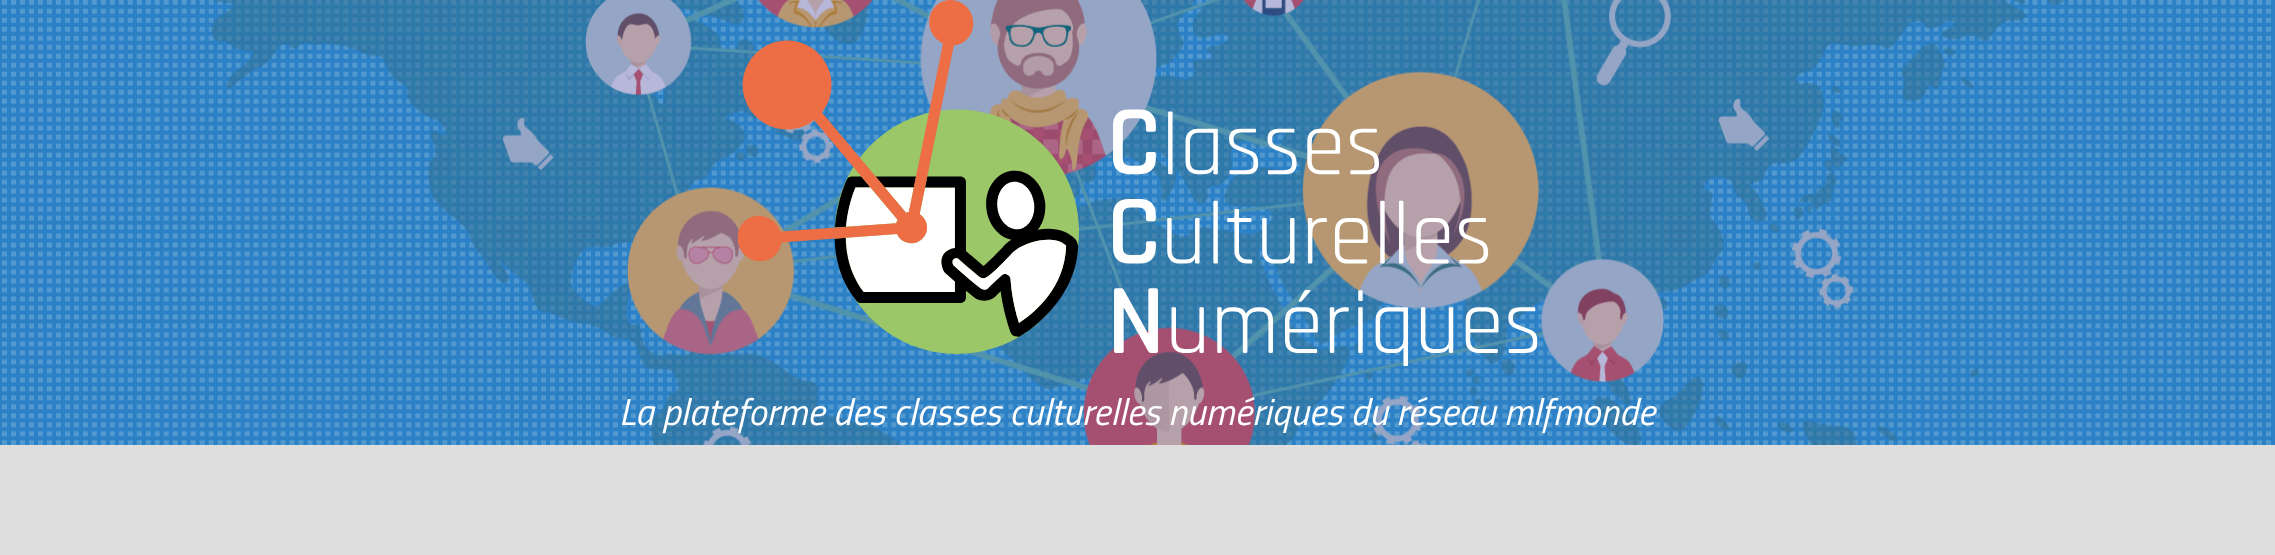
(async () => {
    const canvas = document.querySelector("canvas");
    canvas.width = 2275;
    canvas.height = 555;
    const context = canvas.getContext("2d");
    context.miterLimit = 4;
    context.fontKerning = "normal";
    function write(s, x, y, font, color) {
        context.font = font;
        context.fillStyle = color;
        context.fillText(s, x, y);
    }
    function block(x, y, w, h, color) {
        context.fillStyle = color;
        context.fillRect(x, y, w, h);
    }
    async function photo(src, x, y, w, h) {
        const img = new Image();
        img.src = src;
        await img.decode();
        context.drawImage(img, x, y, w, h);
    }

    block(0, 0, 2275, 555, "rgb(222, 222, 222)");
    await photo("media/1.png", 0, 0, 2275, 445);
    await photo("media/2.png", 738, 0, 800, 366);
    write("La plateforme des classes culturelles numériques du réseau mlfmonde", 619, 425, "italic 37.5px Titillium Web", "rgb(255, 255, 255)");
})();
